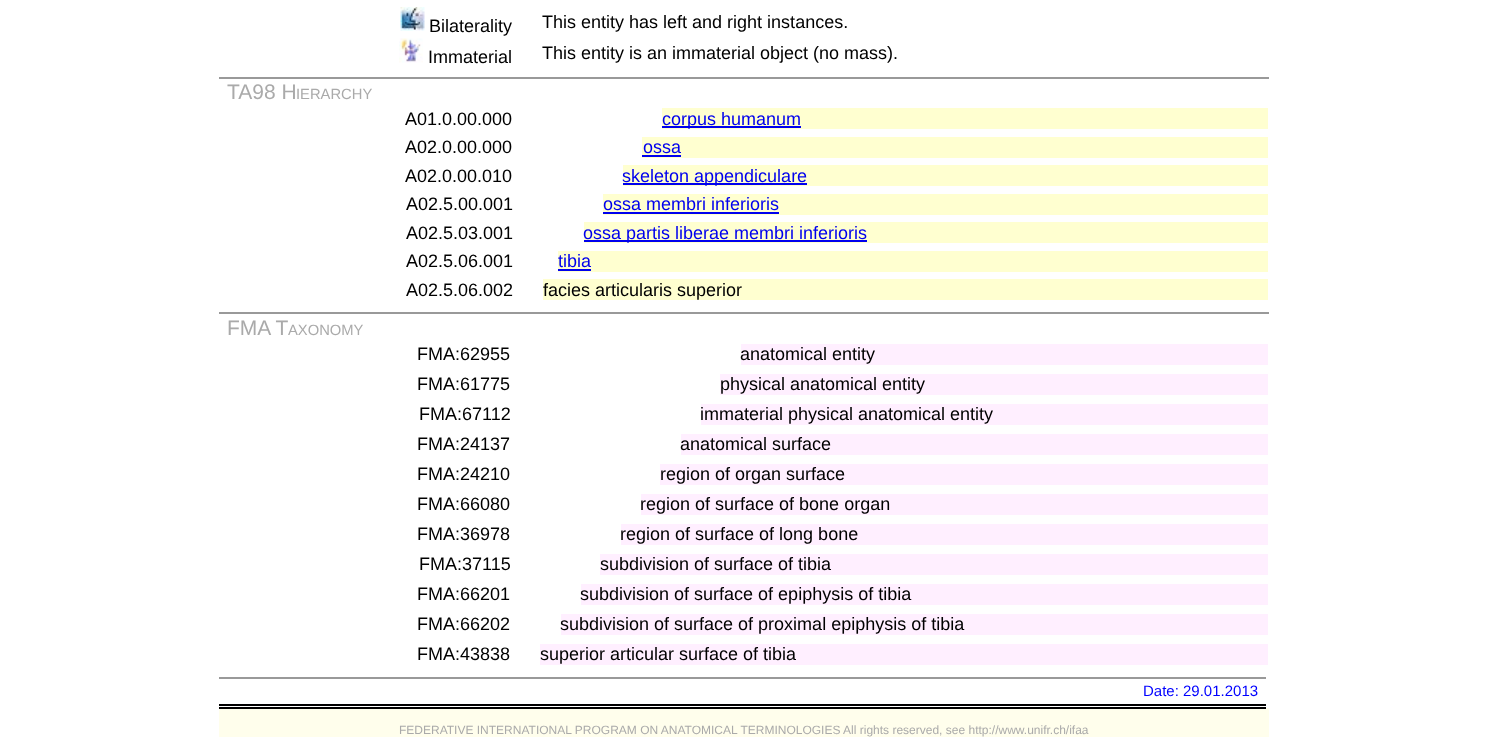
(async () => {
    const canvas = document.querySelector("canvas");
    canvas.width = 1488;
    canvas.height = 748;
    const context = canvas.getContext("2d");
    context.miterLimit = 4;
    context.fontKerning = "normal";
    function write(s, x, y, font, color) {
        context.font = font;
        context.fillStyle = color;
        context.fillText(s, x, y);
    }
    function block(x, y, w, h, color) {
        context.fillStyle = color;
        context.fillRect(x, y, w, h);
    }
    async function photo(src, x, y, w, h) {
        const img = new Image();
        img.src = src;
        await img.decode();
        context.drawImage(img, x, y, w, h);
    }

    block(0, 0, 1488, 748, "rgb(255, 255, 255)");
    block(219, 708, 1050, 29, "rgb(255, 254, 236)");
    await photo("media/1.png", 400, 7, 25, 24);
    write("Bilaterality", 429, 32, "18px Liberation Sans", "rgb(0, 0, 0)");
    write("This entity has left and right instances.", 542, 28, "18px Liberation Sans", "rgb(0, 0, 0)");
    await photo("media/2.png", 399, 38, 24, 25);
    write("Immaterial", 428, 63, "18px Liberation Sans", "rgb(0, 0, 0)");
    write("This entity is an immaterial object (no mass).", 542, 59, "18px Liberation Sans", "rgb(0, 0, 0)");
    block(219, 77, 1050, 2, "rgb(153, 153, 153)");
    write("TA98 H", 227, 99, "21px Liberation Sans", "rgb(170, 170, 170)");
    write("IERARCHY", 296, 99, "14.75px Liberation Sans", "rgb(170, 170, 170)");
    write("A01.0.00.000", 405, 125, "18px Liberation Sans", "rgb(0, 0, 0)");
    block(662, 108, 606, 21, "rgb(255, 255, 208)");
    block(662, 126, 139, 2, "rgb(0, 0, 238)");
    write("corpus humanum", 662, 125, "18px Liberation Sans", "rgb(0, 0, 238)");
    write("A02.0.00.000", 405, 153, "18px Liberation Sans", "rgb(0, 0, 0)");
    block(642, 137, 626, 21, "rgb(255, 255, 208)");
    write("ossa", 643, 153, "18px Liberation Sans", "rgb(0, 0, 238)");
    block(642, 155, 39, 2, "rgb(0, 0, 238)");
    write("A02.0.00.010", 405, 182, "18px Liberation Sans", "rgb(0, 0, 0)");
    block(623, 165, 645, 21, "rgb(255, 255, 208)");
    block(623, 183, 184, 2, "rgb(0, 0, 238)");
    write("skeleton appendiculare", 622, 182, "18px Liberation Sans", "rgb(0, 0, 238)");
    write("A02.5.00.001", 406, 210, "18px Liberation Sans", "rgb(0, 0, 0)");
    block(603, 194, 665, 21, "rgb(255, 255, 208)");
    write("ossa membri inferioris", 603, 210, "18px Liberation Sans", "rgb(0, 0, 238)");
    block(603, 212, 176, 2, "rgb(0, 0, 238)");
    write("A02.5.03.001", 406, 239, "18px Liberation Sans", "rgb(0, 0, 0)");
    block(584, 222, 684, 21, "rgb(255, 255, 208)");
    block(584, 240, 283, 2, "rgb(0, 0, 238)");
    write("ossa partis liberae membri inferioris", 583, 239, "18px Liberation Sans", "rgb(0, 0, 238)");
    write("A02.5.06.001", 406, 267, "18px Liberation Sans", "rgb(0, 0, 0)");
    block(558, 251, 710, 21, "rgb(255, 255, 208)");
    write("tibia", 558, 267, "18px Liberation Sans", "rgb(0, 0, 238)");
    block(558, 269, 33, 2, "rgb(0, 0, 238)");
    write("A02.5.06.002", 406, 296, "18px Liberation Sans", "rgb(0, 0, 0)");
    block(543, 279, 725, 21, "rgb(255, 255, 208)");
    write("facies articularis superior", 543, 296, "18px Liberation Sans", "rgb(0, 0, 0)");
    block(219, 312, 1050, 2, "rgb(153, 153, 153)");
    write("FMA T", 227, 335, "21px Liberation Sans", "rgb(170, 170, 170)");
    write("AXONOMY", 288, 335, "14.75px Liberation Sans", "rgb(170, 170, 170)");
    write("FMA:62955", 417, 360, "18px Liberation Sans", "rgb(0, 0, 0)");
    block(741, 344, 527, 21, "rgb(255, 239, 255)");
    write("anatomical entity", 740, 360, "18px Liberation Sans", "rgb(0, 0, 0)");
    write("FMA:61775", 417, 390, "18px Liberation Sans", "rgb(0, 0, 0)");
    block(720, 374, 548, 21, "rgb(255, 239, 255)");
    write("physical anatomical entity", 720, 390, "18px Liberation Sans", "rgb(0, 0, 0)");
    write("FMA:67112", 419, 420, "18px Liberation Sans", "rgb(0, 0, 0)");
    block(701, 404, 567, 21, "rgb(255, 239, 255)");
    write("immaterial physical anatomical entity", 700, 420, "18px Liberation Sans", "rgb(0, 0, 0)");
    write("FMA:24137", 417, 450, "18px Liberation Sans", "rgb(0, 0, 0)");
    block(681, 434, 587, 21, "rgb(255, 239, 255)");
    write("anatomical surface", 680, 450, "18px Liberation Sans", "rgb(0, 0, 0)");
    write("FMA:24210", 417, 480, "18px Liberation Sans", "rgb(0, 0, 0)");
    block(660, 464, 608, 21, "rgb(255, 239, 255)");
    write("region of organ surface", 660, 480, "18px Liberation Sans", "rgb(0, 0, 0)");
    write("FMA:66080", 417, 510, "18px Liberation Sans", "rgb(0, 0, 0)");
    block(641, 494, 627, 21, "rgb(255, 239, 255)");
    write("region of surface of bone organ", 640, 510, "18px Liberation Sans", "rgb(0, 0, 0)");
    write("FMA:36978", 417, 540, "18px Liberation Sans", "rgb(0, 0, 0)");
    block(621, 524, 647, 21, "rgb(255, 239, 255)");
    write("region of surface of long bone", 620, 540, "18px Liberation Sans", "rgb(0, 0, 0)");
    write("FMA:37115", 419, 570, "18px Liberation Sans", "rgb(0, 0, 0)");
    block(600, 554, 668, 21, "rgb(255, 239, 255)");
    write("subdivision of surface of tibia", 600, 570, "18px Liberation Sans", "rgb(0, 0, 0)");
    write("FMA:66201", 417, 600, "18px Liberation Sans", "rgb(0, 0, 0)");
    block(581, 584, 687, 21, "rgb(255, 239, 255)");
    write("subdivision of surface of epiphysis of tibia", 580, 600, "18px Liberation Sans", "rgb(0, 0, 0)");
    write("FMA:66202", 417, 630, "18px Liberation Sans", "rgb(0, 0, 0)");
    block(561, 614, 707, 21, "rgb(255, 239, 255)");
    write("subdivision of surface of proximal epiphysis of tibia", 560, 630, "18px Liberation Sans", "rgb(0, 0, 0)");
    write("FMA:43838", 417, 660, "18px Liberation Sans", "rgb(0, 0, 0)");
    block(540, 644, 728, 21, "rgb(255, 239, 255)");
    write("superior articular surface of tibia", 540, 660, "18px Liberation Sans", "rgb(0, 0, 0)");
    block(219, 677, 1047, 2, "rgb(153, 153, 153)");
    block(219, 704, 1047, 2, "rgb(0, 0, 0)");
    block(219, 707, 1047, 2, "rgb(0, 0, 0)");
    write("Date: 29.01.2013", 1143, 696, "15px Liberation Sans", "rgb(0, 0, 255)");
    write("FEDERATIVE INTERNATIONAL PROGRAM ON ANATOMICAL TERMINOLOGIES All rights reserved, see http://www.unifr.ch/ifaa", 399, 734, "12px Liberation Sans", "rgb(170, 170, 170)");
})();
